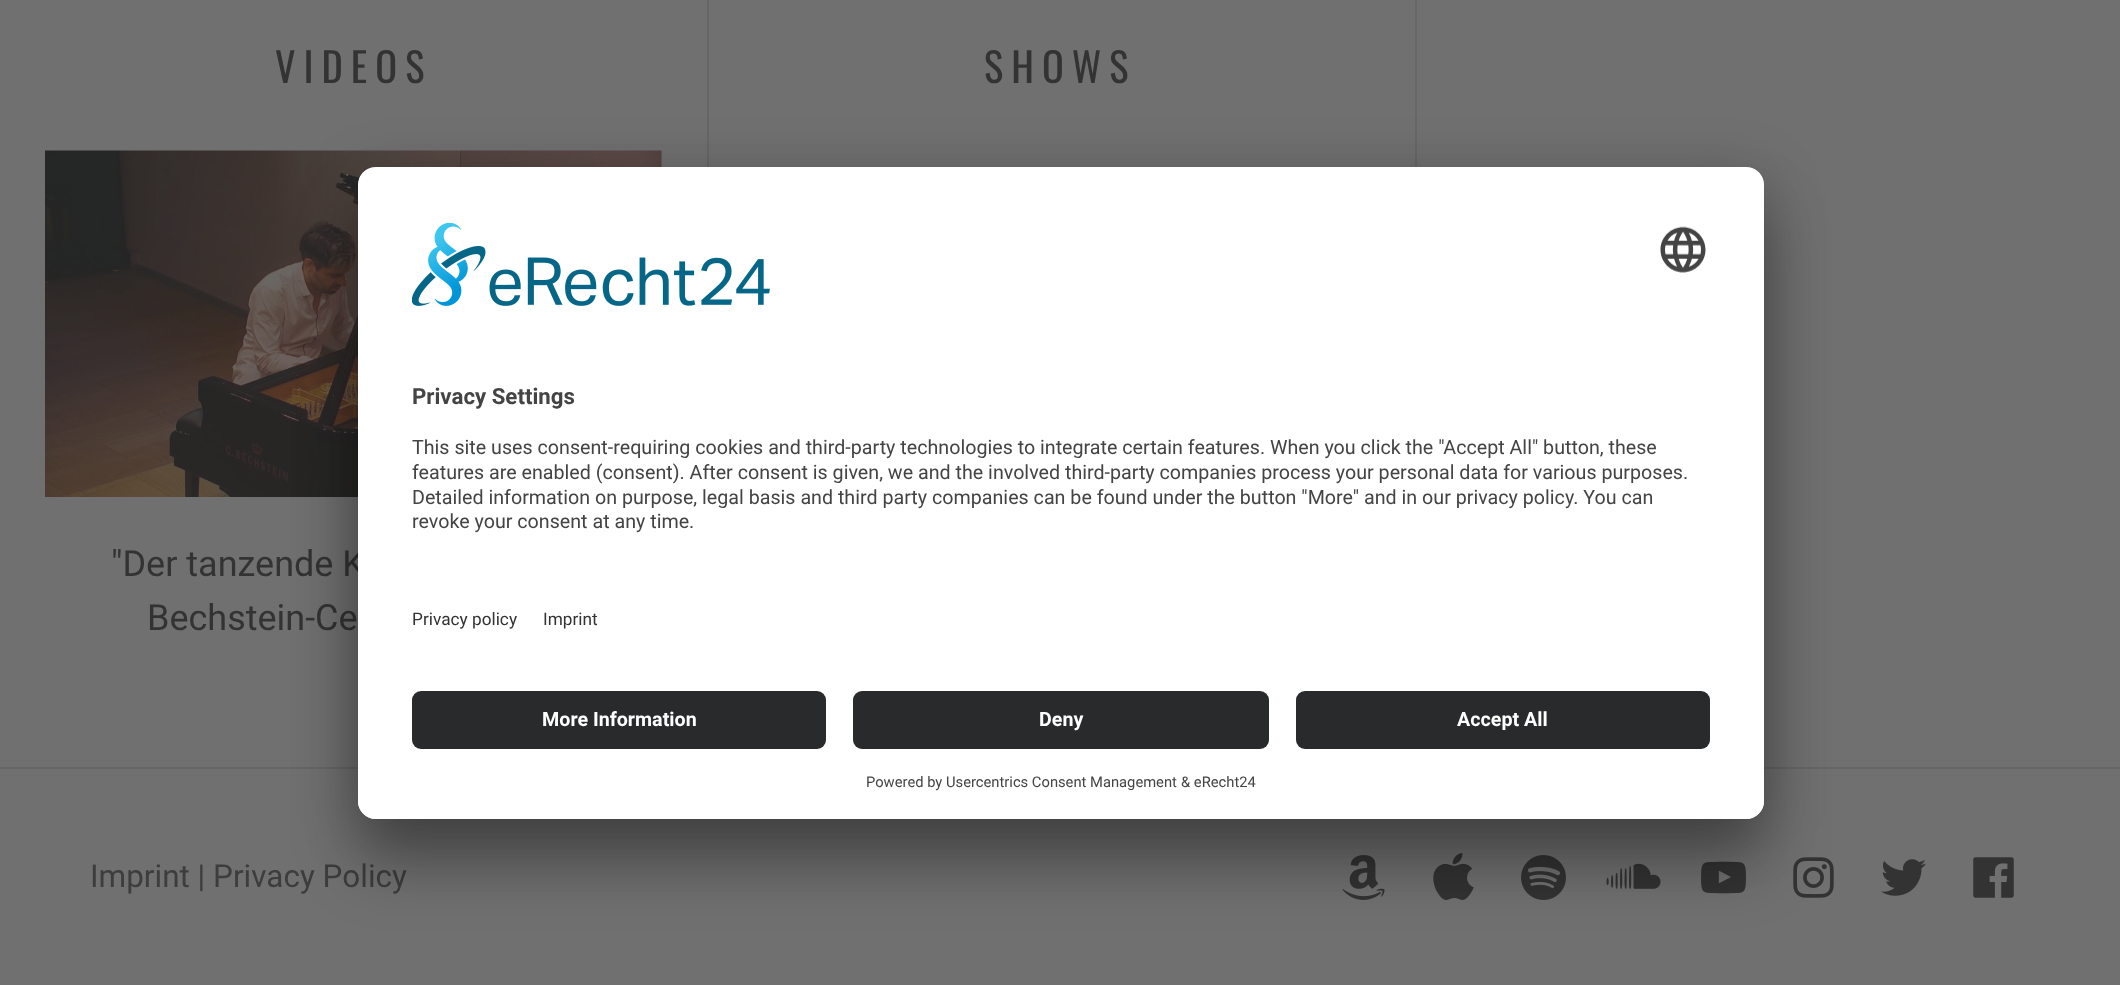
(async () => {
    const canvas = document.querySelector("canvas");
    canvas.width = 2120;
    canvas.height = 985;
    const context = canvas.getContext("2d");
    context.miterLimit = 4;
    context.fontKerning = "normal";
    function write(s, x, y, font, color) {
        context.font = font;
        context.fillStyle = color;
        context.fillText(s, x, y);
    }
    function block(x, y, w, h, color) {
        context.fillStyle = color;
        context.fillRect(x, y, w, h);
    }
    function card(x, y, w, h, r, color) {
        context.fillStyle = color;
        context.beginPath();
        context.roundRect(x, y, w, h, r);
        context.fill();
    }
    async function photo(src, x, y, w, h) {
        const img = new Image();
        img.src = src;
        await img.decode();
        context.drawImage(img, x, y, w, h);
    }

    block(0, 0, 2120, 985, "rgb(112, 112, 112)");
    block(0, 767, 2120, 2, "rgb(102, 102, 102)");
    context.letterSpacing = "8px";
    write("VIDEOS", 275, 83, "40.5px Oswald", "rgb(51, 51, 51)");
    await photo("media/1.png", 45, 150, 617, 347);
    context.letterSpacing = "0px";
    write("\"Der tanzende K", 111, 576, "36px Roboto", "rgb(51, 51, 51)");
    write("Bechstein-Ce", 147, 630, "36px Roboto", "rgb(51, 51, 51)");
    block(707, 0, 2, 167, "rgb(102, 102, 102)");
    context.letterSpacing = "8px";
    write("SHOWS", 984, 83, "40.5px Oswald", "rgb(51, 51, 51)");
    block(1415, 0, 2, 167, "rgb(102, 102, 102)");
    context.letterSpacing = "0px";
    write("Imprint | Privacy Policy", 90, 887, "31.5px Roboto", "rgb(61, 61, 61)");
    await photo("media/2.png", 1342, 855, 43, 45);
    await photo("media/3.png", 1433, 853, 41, 47);
    await photo("media/4.png", 1521, 855, 45, 45);
    await photo("media/5.png", 1606, 863, 55, 26);
    await photo("media/6.png", 1701, 861, 45, 33);
    await photo("media/7.png", 1793, 857, 41, 41);
    await photo("media/8.png", 1881, 859, 45, 37);
    await photo("media/9.png", 1973, 857, 41, 41);
    context.fillStyle = "rgba(0, 0, 0, 0.3)";
    context.filter = "blur(31.5px)";
    context.beginPath();
    context.roundRect(358, 212, 1406, 652, 18);
    context.fill();
    context.filter = "none";
    context.fillStyle = "rgba(0, 0, 0, 0.22)";
    context.filter = "blur(29px)";
    context.beginPath();
    context.roundRect(358, 178, 1406, 652, 18);
    context.fill();
    context.filter = "none";
    card(358, 167, 1406, 652, 18, "rgb(255, 255, 255)");
    context.save();
    context.beginPath();
    context.roundRect(358, 167, 1406, 652, 18);
    context.clip();
    context.beginPath();
    context.roundRect(358, 167, 1406, 506, [18, 18, 0, 0]);
    context.clip();
    block(358, 169, 1406, 504, "rgb(255, 255, 255)");
    context.restore();
    await photo("media/10.png", 412, 223, 358, 83);
    await photo("media/11.png", 1660, 226, 46, 47);
    write("Privacy Settings", 412, 404, "bold 22.25px Roboto", "rgb(68, 68, 68)");
    write("This site uses consent-requiring cookies and third-party technologies to integrate certain features. When you click the \"Accept All\" button, these", 412, 454, "19.7px Roboto", "rgb(68, 68, 68)");
    write("features are enabled (consent). After consent is given, we and the involved third-party companies process your personal data for various purposes.", 412, 479, "19.7px Roboto", "rgb(68, 68, 68)");
    write("Detailed information on purpose, legal basis and third party companies can be found under the button \"More\" and in our privacy policy. You can", 412, 504, "19.7px Roboto", "rgb(68, 68, 68)");
    write("revoke your consent at any time.", 412, 528, "19.7px Roboto", "rgb(68, 68, 68)");
    write("Privacy policy", 412, 625, "17.25px Roboto", "rgb(51, 51, 51)");
    write("Imprint", 543, 625, "17.25px Roboto", "rgb(51, 51, 51)");
    context.fillStyle = "rgb(255, 255, 255)";
    context.beginPath();
    context.roundRect(358, 673, 1406, 146, [0, 0, 18, 18]);
    context.fill();
    card(412, 691, 414, 58, 9, "rgb(41, 42, 43)");
    write("More Information", 542, 726, "bold 19.7px Roboto", "rgb(255, 255, 255)");
    card(853, 691, 416, 58, 9, "rgb(41, 42, 43)");
    write("Deny", 1039, 726, "bold 19.7px Roboto", "rgb(255, 255, 255)");
    card(1296, 691, 414, 58, 9, "rgb(41, 42, 43)");
    write("Accept All", 1457, 726, "bold 19.7px Roboto", "rgb(255, 255, 255)");
    write("Powered by Usercentrics Consent Management", 866, 787, "14.75px Roboto", "rgb(68, 68, 68)");
    write("& eRecht24", 1181, 787, "14.75px Roboto", "rgb(68, 68, 68)");
})();
